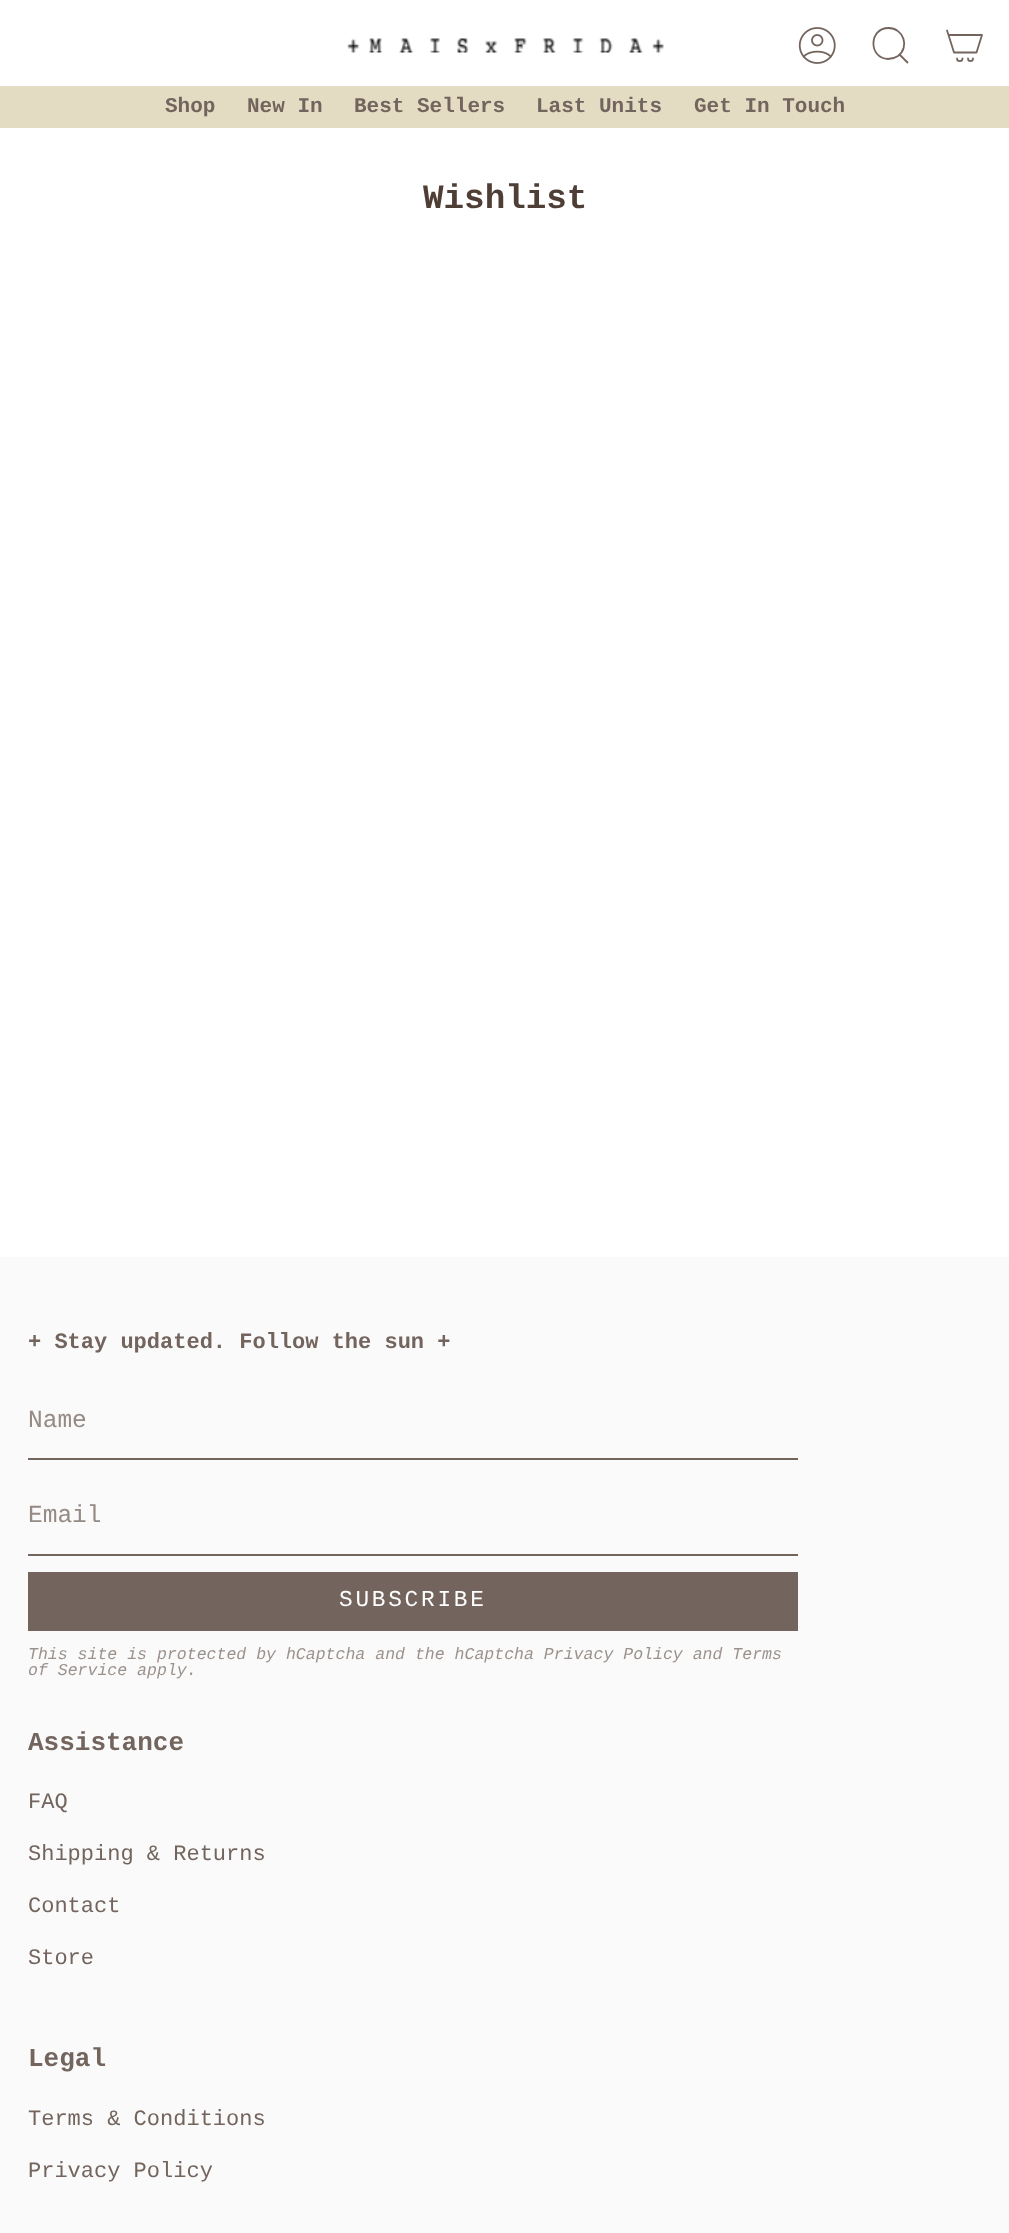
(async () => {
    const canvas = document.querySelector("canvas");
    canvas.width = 1009;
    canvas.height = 2233;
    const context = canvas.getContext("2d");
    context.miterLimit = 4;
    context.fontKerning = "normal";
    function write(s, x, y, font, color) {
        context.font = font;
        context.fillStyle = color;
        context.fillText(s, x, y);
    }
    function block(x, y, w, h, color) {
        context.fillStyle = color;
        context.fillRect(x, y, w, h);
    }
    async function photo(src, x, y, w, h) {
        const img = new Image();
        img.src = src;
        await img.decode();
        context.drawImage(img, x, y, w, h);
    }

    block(0, 0, 1009, 2233, "rgb(255, 255, 255)");
    await photo("media/1.png", 347, 38, 317, 15);
    await photo("media/2.png", 798, 27, 38, 37);
    context.beginPath();
    context.moveTo(888.5, 28);
    context.bezierCurveTo(903.5, 28, 910, 47, 898, 56);
    context.bezierCurveTo(895, 58, 891.5, 59, 888, 59);
    context.bezierCurveTo(868, 58, 869, 28, 888.5, 28);
    context.closePath();
    context.moveTo(899.5, 54.5);
    context.lineTo(908, 63);
    context.strokeStyle = "rgb(115, 101, 94)";
    context.lineWidth = 1.8;
    context.stroke();
    context.beginPath();
    context.moveTo(948.5, 35);
    context.lineTo(982, 35);
    context.lineTo(976.5, 52.5);
    context.lineTo(954, 52.5);
    context.closePath();
    context.moveTo(948.5, 35);
    context.lineTo(947, 30.5);
    context.moveTo(962.5, 58.5);
    context.bezierCurveTo(962.5, 62, 957, 62, 957, 58.5);
    context.moveTo(973, 58.5);
    context.bezierCurveTo(973, 62, 968, 62, 968, 58.5);
    context.lineCap = "round";
    context.lineJoin = "round";
    context.stroke();
    block(0, 86, 1009, 42, "rgb(227, 219, 194)");
    write("Shop", 165, 112, "bold 21px Liberation Mono", "rgb(115, 101, 94)");
    write("New In", 247, 112, "bold 21px Liberation Mono", "rgb(115, 101, 94)");
    write("Best Sellers", 354, 112, "bold 21px Liberation Mono", "rgb(115, 101, 94)");
    write("Last Units", 536, 112, "bold 21px Liberation Mono", "rgb(115, 101, 94)");
    write("Get In Touch", 694, 112, "bold 21px Liberation Mono", "rgb(115, 101, 94)");
    write("Wishlist", 423, 208, "bold 34.25px Liberation Mono", "rgb(79, 62, 53)");
    block(0, 1257, 1009, 976, "rgb(250, 250, 250)");
    write("+ Stay updated. Follow the sun +", 28, 1348, "bold 22px Liberation Mono", "rgb(115, 101, 94)");
    block(28, 1458, 770, 2, "rgb(115, 101, 94)");
    write("Name", 28, 1427, "24.5px Liberation Mono", "rgb(149, 138, 133)");
    block(28, 1554, 770, 2, "rgb(115, 101, 94)");
    write("Email", 28, 1522, "24.5px Liberation Mono", "rgb(149, 138, 133)");
    block(28, 1572, 770, 59, "rgb(115, 101, 94)");
    context.letterSpacing = "2.75px";
    write("SUBSCRIBE", 339, 1606, "22.75px Liberation Mono", "rgb(255, 255, 255)");
    context.letterSpacing = "0px";
    write("This site is protected by hCaptcha and the hCaptcha Privacy Policy and Terms", 28, 1659, "italic 16.55px Liberation Mono", "rgb(156, 146, 141)");
    write("of Service apply.", 28, 1675, "italic 16.55px Liberation Mono", "rgb(156, 146, 141)");
    write("Assistance", 28, 1750, "bold 26px Liberation Mono", "rgb(115, 101, 94)");
    write("FAQ", 28, 1808, "22px Liberation Mono", "rgb(115, 101, 94)");
    write("Shipping & Returns", 28, 1860, "22px Liberation Mono", "rgb(115, 101, 94)");
    write("Contact", 28, 1912, "22px Liberation Mono", "rgb(115, 101, 94)");
    write("Store", 28, 1964, "22px Liberation Mono", "rgb(115, 101, 94)");
    write("Legal", 28, 2066, "bold 26px Liberation Mono", "rgb(115, 101, 94)");
    write("Terms & Conditions", 28, 2125, "22px Liberation Mono", "rgb(115, 101, 94)");
    write("Privacy Policy", 28, 2177, "22px Liberation Mono", "rgb(115, 101, 94)");
})();
